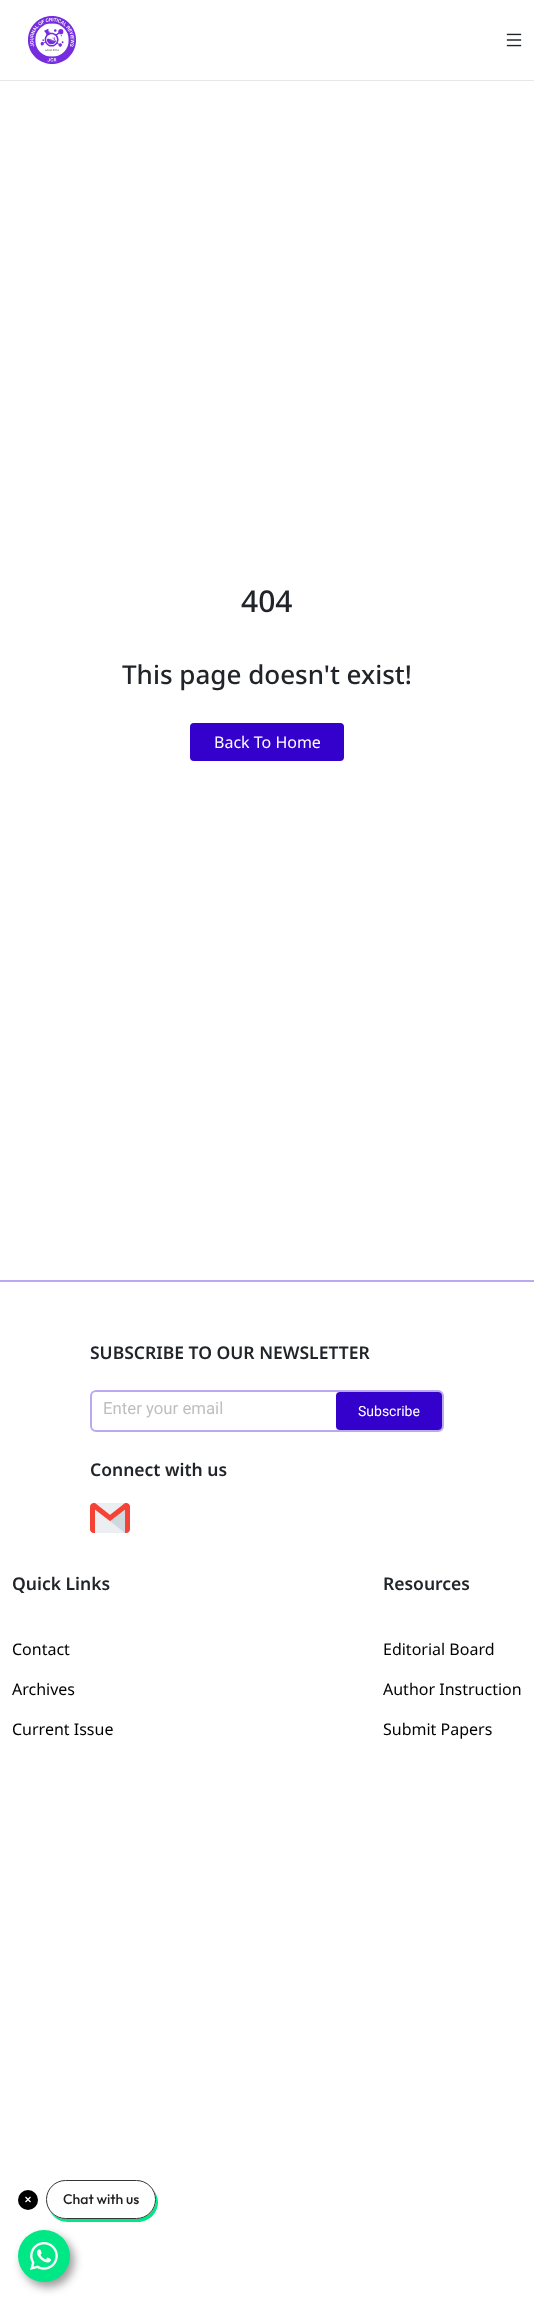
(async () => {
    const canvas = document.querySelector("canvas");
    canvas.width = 534;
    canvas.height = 2302;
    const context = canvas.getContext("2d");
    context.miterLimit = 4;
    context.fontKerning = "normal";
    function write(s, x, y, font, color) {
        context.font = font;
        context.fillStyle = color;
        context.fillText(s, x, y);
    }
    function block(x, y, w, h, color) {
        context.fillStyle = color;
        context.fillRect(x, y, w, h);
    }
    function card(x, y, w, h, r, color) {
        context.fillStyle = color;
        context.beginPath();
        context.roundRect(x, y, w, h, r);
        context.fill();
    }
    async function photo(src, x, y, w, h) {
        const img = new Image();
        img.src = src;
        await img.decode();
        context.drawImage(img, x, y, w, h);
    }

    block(0, 0, 534, 2302, "rgb(255, 255, 255)");
    block(0, 80, 534, 1, "rgb(229, 231, 235)");
    await photo("media/1.png", 28, 16, 48, 48);
    await photo("media/2.png", 506, 33, 16, 14);
    write("404", 241, 612, "500 30px Noto Sans", "rgb(33, 37, 41)");
    write("This page doesn't exist!", 122, 684, "500 26px Noto Sans", "rgb(33, 37, 41)");
    card(190, 723, 154, 38, 4, "rgb(51, 0, 204)");
    write("Back To Home", 214, 748, "16px Noto Sans", "rgb(255, 255, 255)");
    block(0, 1280, 534, 2, "rgb(186, 168, 241)");
    write("SUBSCRIBE TO OUR NEWSLETTER", 90, 1359, "600 17.5px Noto Sans", "rgb(33, 37, 41)");
    context.beginPath();
    context.roundRect(91, 1391, 352, 40, 5);
    context.strokeStyle = "rgb(186, 168, 241)";
    context.lineWidth = 2;
    context.stroke();
    write("Enter your email", 103, 1414, "16.75px Roboto", "rgb(191, 191, 191)");
    context.fillStyle = "rgb(250, 250, 250)";
    context.beginPath();
    context.moveTo(336, 1426);
    context.bezierCurveTo(336, 1427.5, 336, 1429, 336.5, 1430);
    context.lineTo(340, 1430);
    context.bezierCurveTo(338, 1430, 336, 1428, 336, 1426);
    context.closePath();
    context.fill();
    card(336, 1392, 106, 38, 4, "rgb(51, 0, 204)");
    write("Subscribe", 358, 1416, "14px Roboto", "rgb(255, 255, 255)");
    write("Connect with us", 90, 1476, "600 17.5px Noto Sans", "rgb(33, 37, 41)");
    await photo("media/3.png", 90, 1503, 40, 30);
    write("Quick Links", 12, 1590, "600 17.5px Noto Sans", "rgb(33, 37, 41)");
    write("Contact", 12, 1655, "16px Noto Sans", "rgb(0, 0, 0)");
    write("Archives", 12, 1695, "16px Noto Sans", "rgb(0, 0, 0)");
    write("Current Issue", 12, 1735, "16px Noto Sans", "rgb(0, 0, 0)");
    write("Resources", 383, 1590, "600 17.5px Noto Sans", "rgb(33, 37, 41)");
    write("Editorial Board", 383, 1655, "16px Noto Sans", "rgb(0, 0, 0)");
    write("Author Instruction", 383, 1695, "16px Noto Sans", "rgb(0, 0, 0)");
    write("Submit Papers", 383, 1735, "16px Noto Sans", "rgb(0, 0, 0)");
    context.beginPath();
    context.arc(28, 2200, 10, 0, Math.PI * 2);
    context.fill();
    context.beginPath();
    context.moveTo(25.5, 2197);
    context.lineTo(30.5, 2202);
    context.moveTo(25.5, 2202);
    context.lineTo(30.5, 2197);
    context.strokeStyle = "rgb(255, 255, 255)";
    context.lineWidth = 1.3;
    context.stroke();
    context.fillStyle = "rgba(0, 0, 0, 0.4)";
    context.filter = "blur(5px)";
    context.beginPath();
    context.roundRect(22, 2235, 52, 52, 26);
    context.fill();
    context.filter = "none";
    context.fillStyle = "rgb(0, 231, 133)";
    context.beginPath();
    context.moveTo(50, 2212);
    context.bezierCurveTo(54, 2218, 60, 2222, 68, 2222);
    context.lineTo(138, 2222);
    context.bezierCurveTo(149, 2222, 158, 2213, 158, 2202);
    context.bezierCurveTo(158, 2198, 156, 2194, 154, 2190);
    context.bezierCurveTo(155, 2193, 156, 2196, 156, 2200);
    context.bezierCurveTo(156, 2210, 147, 2219, 136, 2219);
    context.lineTo(66, 2219);
    context.bezierCurveTo(59, 2219, 54, 2216, 50, 2212);
    context.closePath();
    context.fill();
    context.fillStyle = "rgb(255, 255, 255)";
    context.beginPath();
    context.roundRect(46.5, 2180.5, 109, 38, 19);
    context.fill();
    context.strokeStyle = "rgb(54, 54, 54)";
    context.lineWidth = 1;
    context.stroke();
    write("Chat with us", 63, 2204, "500 14px Outfit", "rgb(32, 32, 32)");
    context.fillStyle = "rgb(0, 231, 133)";
    context.beginPath();
    context.arc(44, 2256, 26, 0, Math.PI * 2);
    context.fill();
    await photo("media/4.png", 30, 2242, 28, 28);
})();
